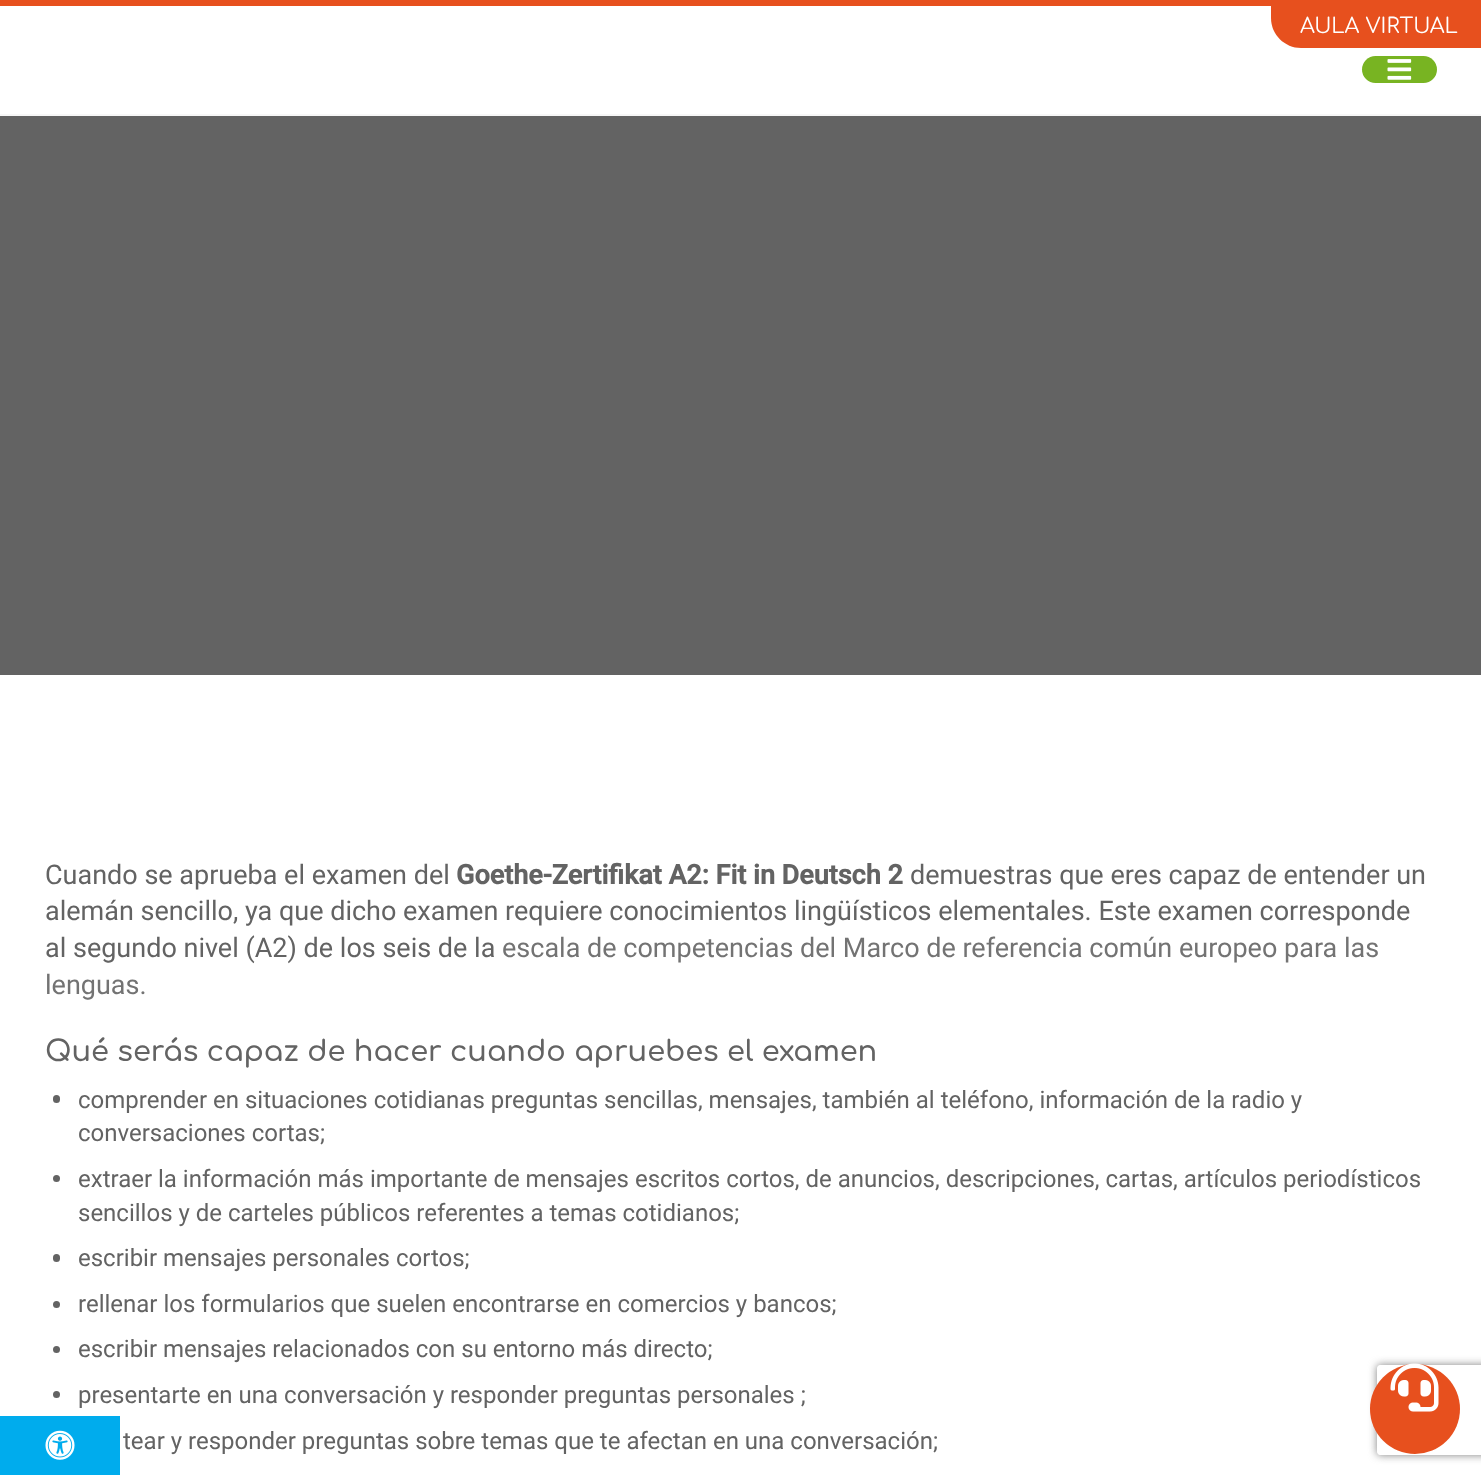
(async () => {
    const canvas = document.querySelector("canvas");
    canvas.width = 1481;
    canvas.height = 1475;
    const context = canvas.getContext("2d");
    context.miterLimit = 4;
    context.fontKerning = "normal";
    function write(s, x, y, font, color) {
        context.font = font;
        context.fillStyle = color;
        context.fillText(s, x, y);
    }
    function block(x, y, w, h, color) {
        context.fillStyle = color;
        context.fillRect(x, y, w, h);
    }
    function card(x, y, w, h, r, color) {
        context.fillStyle = color;
        context.beginPath();
        context.roundRect(x, y, w, h, r);
        context.fill();
    }
    async function photo(src, x, y, w, h) {
        const img = new Image();
        img.src = src;
        await img.decode();
        context.drawImage(img, x, y, w, h);
    }

    block(0, 0, 1481, 1475, "rgb(255, 255, 255)");
    block(0, 0, 1481, 6, "rgb(231, 80, 30)");
    block(0, 114, 1481, 2, "rgb(247, 247, 247)");
    context.fillStyle = "rgb(231, 80, 30)";
    context.beginPath();
    context.moveTo(1271, 6);
    context.lineTo(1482, 6);
    context.lineTo(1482, 48);
    context.lineTo(1301, 48);
    context.bezierCurveTo(1284.5, 48, 1271, 34.5, 1271, 18);
    context.closePath();
    context.fill();
    write("AULA VIRTUAL", 1300, 33, "21px Comfortaa", "rgb(255, 255, 255)");
    card(1362, 56, 75, 27, 13.5, "rgb(120, 180, 34)");
    await photo("media/1.png", 1387, 59, 25, 21);
    context.save();
    context.beginPath();
    context.moveTo(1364, 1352);
    context.lineTo(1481, 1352);
    context.lineTo(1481, 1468);
    context.lineTo(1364, 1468);
    context.closePath();
    context.moveTo(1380, 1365);
    context.lineTo(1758, 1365);
    context.bezierCurveTo(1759.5, 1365, 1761, 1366.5, 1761, 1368);
    context.lineTo(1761, 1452);
    context.bezierCurveTo(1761, 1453.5, 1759.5, 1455, 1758, 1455);
    context.lineTo(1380, 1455);
    context.bezierCurveTo(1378.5, 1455, 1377, 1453.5, 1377, 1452);
    context.lineTo(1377, 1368);
    context.bezierCurveTo(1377, 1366.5, 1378.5, 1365, 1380, 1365);
    context.closePath();
    context.clip("evenodd");
    context.fillStyle = "rgb(128, 128, 128)";
    context.filter = "blur(4px)";
    context.beginPath();
    context.roundRect(1377, 1365, 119, 90, 3);
    context.fill();
    context.filter = "none";
    context.restore();
    context.fillStyle = "rgb(231, 80, 30)";
    context.beginPath();
    context.arc(1415, 1409, 45, 0, Math.PI * 2);
    context.fill();
    await photo("media/2.png", 1390, 1363, 49, 49);
    block(0, 116, 1481, 559, "rgb(99, 99, 99)");
    write("Cuando se aprueba el examen del", 45, 884, "27px Roboto", "rgb(99, 99, 99)");
    write("Goethe-Zertifikat A2: Fit in Deutsch 2", 456, 884, "bold 27px Roboto", "rgb(99, 99, 99)");
    write("demuestras que eres capaz de entender un", 910, 884, "27px Roboto", "rgb(99, 99, 99)");
    write("alemán sencillo, ya que dicho examen requiere conocimientos lingüísticos elementales. Este examen corresponde", 45, 920, "27px Roboto", "rgb(99, 99, 99)");
    write("al segundo nivel (A2) de los seis de la", 45, 957, "27px Roboto", "rgb(99, 99, 99)");
    write("escala de competencias del Marco de referencia común europeo para las", 502, 957, "27px Roboto", "rgb(115, 115, 115)");
    write("lenguas.", 45, 994, "27px Roboto", "rgb(115, 115, 115)");
    write("Qué serás capaz de hacer cuando apruebes el examen", 45, 1061, "600 28.8px Comfortaa", "rgb(99, 99, 99)");
    card(53, 1095, 7, 8, 3.5, "rgb(99, 99, 99)");
    write("comprender en situaciones cotidianas preguntas sencillas, mensajes, también al teléfono, información de la radio y", 78, 1108, "24px Roboto", "rgb(99, 99, 99)");
    write("conversaciones cortas;", 78, 1141, "24px Roboto", "rgb(99, 99, 99)");
    context.beginPath();
    context.arc(56.5, 1178.5, 3.5, 0, Math.PI * 2);
    context.fill();
    write("extraer la información más importante de mensajes escritos cortos, de anuncios, descripciones, cartas, artículos periodísticos", 78, 1187, "24px Roboto", "rgb(99, 99, 99)");
    write("sencillos y de carteles públicos referentes a temas cotidianos;", 78, 1221, "24px Roboto", "rgb(99, 99, 99)");
    card(53, 1254, 7, 8, 3.5, "rgb(99, 99, 99)");
    write("escribir mensajes personales cortos;", 78, 1266, "24px Roboto", "rgb(99, 99, 99)");
    context.beginPath();
    context.arc(56.5, 1304.5, 3.5, 0, Math.PI * 2);
    context.fill();
    write("rellenar los formularios que suelen encontrarse en comercios y bancos;", 78, 1312, "24px Roboto", "rgb(99, 99, 99)");
    context.beginPath();
    context.arc(56.5, 1349.5, 3.5, 0, Math.PI * 2);
    context.fill();
    write("escribir mensajes relacionados con su entorno más directo;", 78, 1357, "24px Roboto", "rgb(99, 99, 99)");
    context.beginPath();
    context.arc(56.5, 1394.5, 3.5, 0, Math.PI * 2);
    context.fill();
    write("presentarte en una conversación y responder preguntas personales ;", 78, 1403, "24px Roboto", "rgb(99, 99, 99)");
    write("tear y responder preguntas sobre temas que te afectan en una conversación;", 123, 1449, "24px Roboto", "rgb(99, 99, 99)");
    block(0, 1416, 120, 59, "rgb(0, 172, 237)");
    await photo("media/3.png", 45, 1430, 30, 30);
})();
